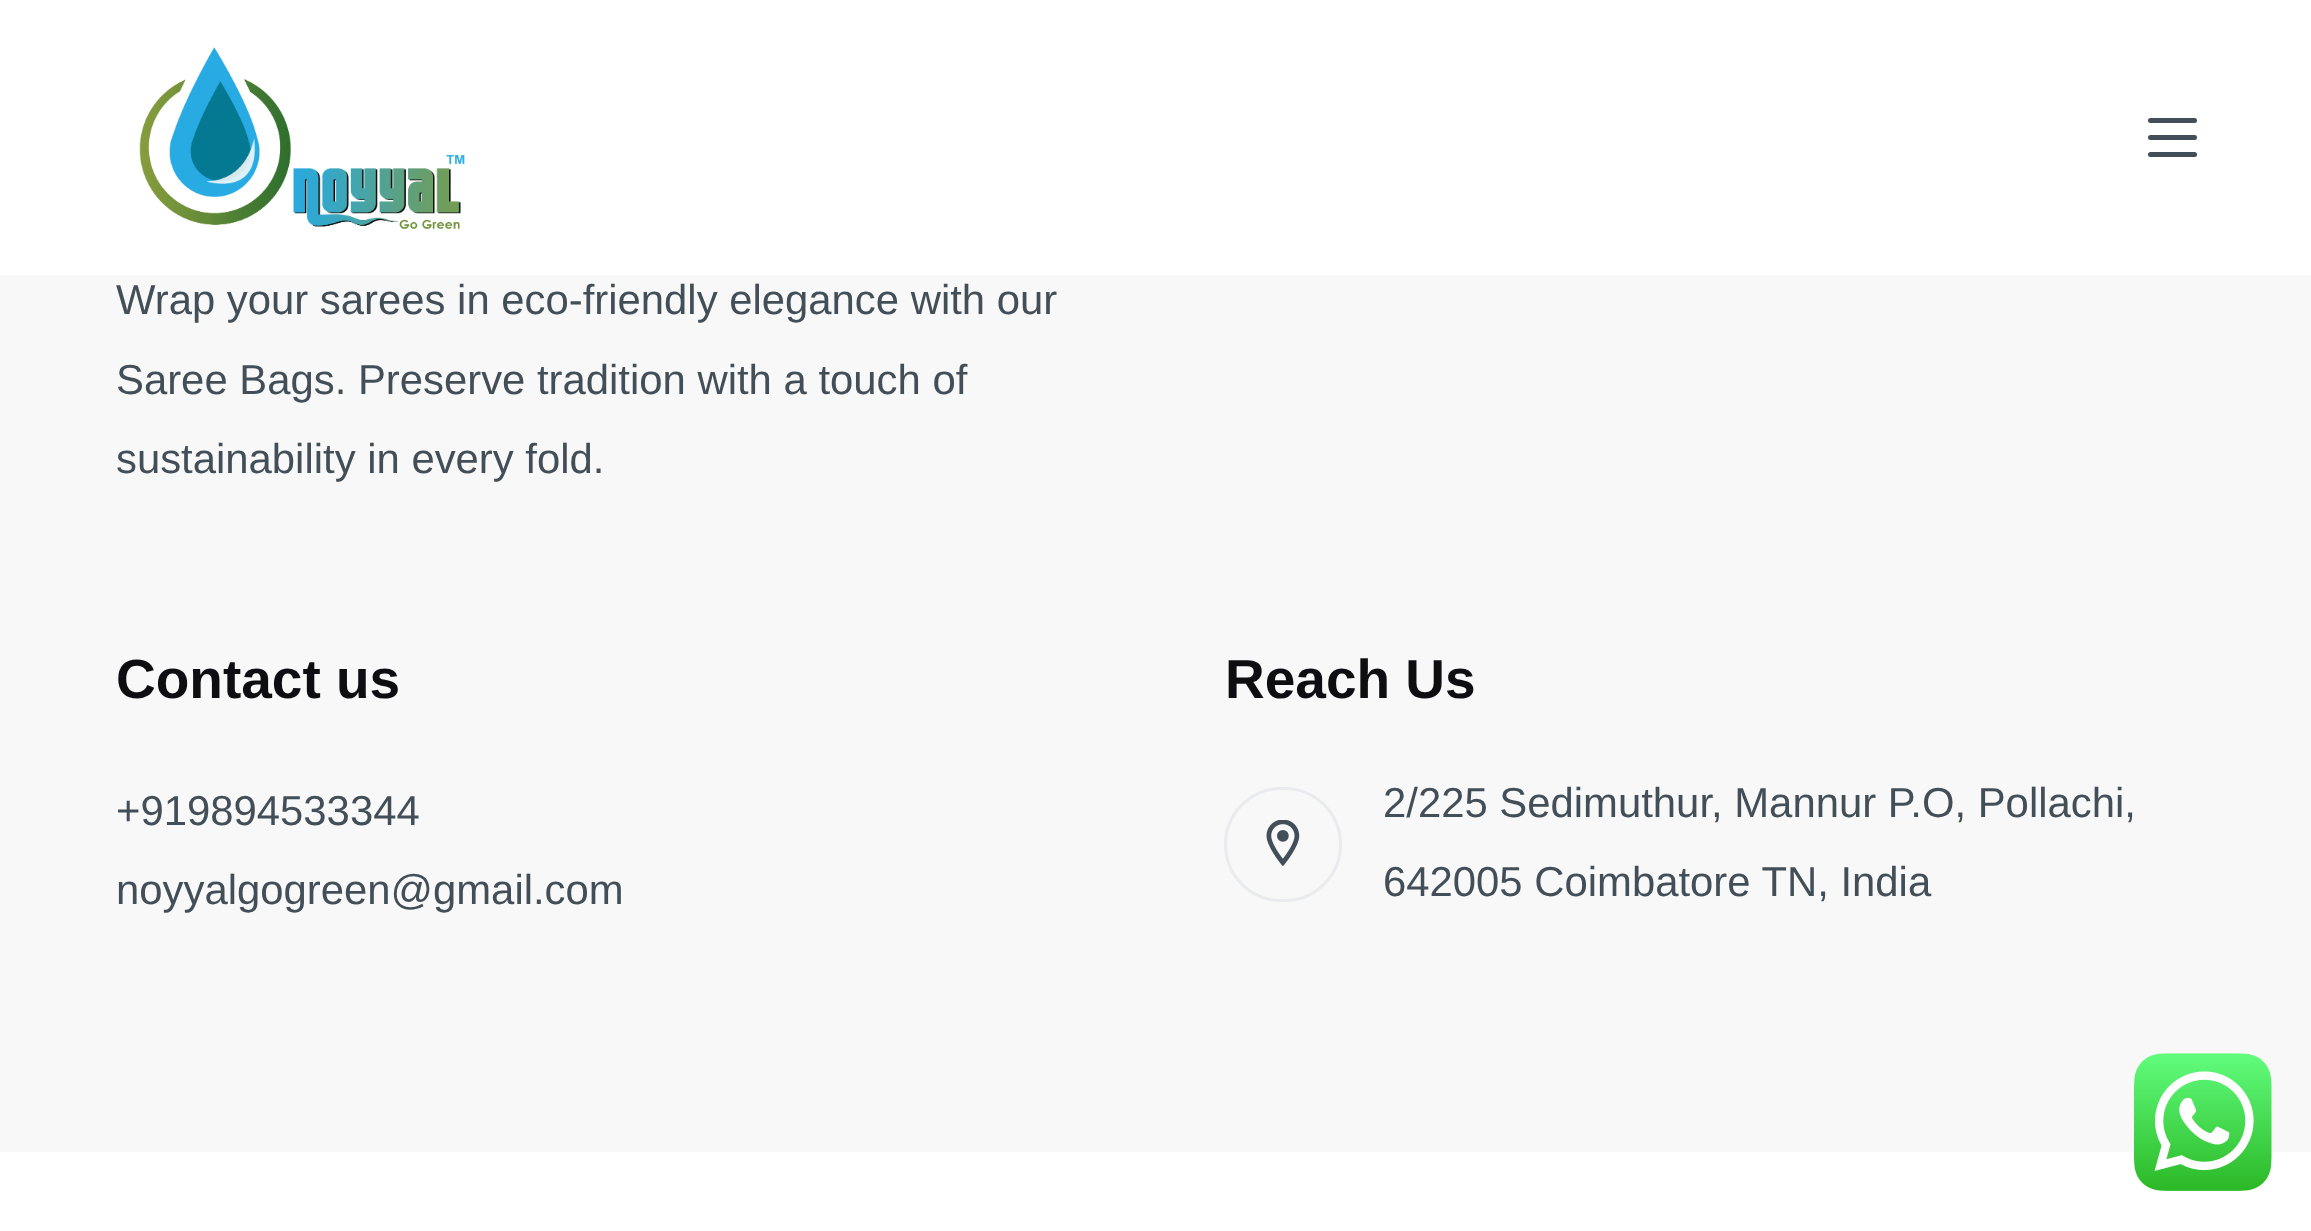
(async () => {
    const canvas = document.querySelector("canvas");
    canvas.width = 2311;
    canvas.height = 1231;
    const context = canvas.getContext("2d");
    context.miterLimit = 4;
    context.fontKerning = "normal";
    function write(s, x, y, font, color) {
        context.font = font;
        context.fillStyle = color;
        context.fillText(s, x, y);
    }
    function block(x, y, w, h, color) {
        context.fillStyle = color;
        context.fillRect(x, y, w, h);
    }
    function card(x, y, w, h, r, color) {
        context.fillStyle = color;
        context.beginPath();
        context.roundRect(x, y, w, h, r);
        context.fill();
    }
    async function photo(src, x, y, w, h) {
        const img = new Image();
        img.src = src;
        await img.decode();
        context.drawImage(img, x, y, w, h);
    }

    block(0, 0, 2311, 1231, "rgb(248, 248, 248)");
    block(0, 0, 2311, 275, "rgb(255, 255, 255)");
    await photo("media/1.png", 139, 47, 326, 183);
    card(2148, 118, 49, 5, 2.5, "rgb(67, 79, 88)");
    card(2148, 135, 49, 5, 2.5, "rgb(67, 79, 88)");
    card(2148, 152, 49, 5, 2.5, "rgb(67, 79, 88)");
    write("Wrap your sarees in eco-friendly elegance with our", 116, 314, "41.85px Liberation Sans", "rgb(67, 79, 88)");
    write("Saree Bags. Preserve tradition with a touch of", 116, 394, "41.85px Liberation Sans", "rgb(67, 79, 88)");
    write("sustainability in every fold.", 116, 473, "41.85px Liberation Sans", "rgb(67, 79, 88)");
    write("Contact us", 116, 698, "bold 55px Liberation Sans", "rgb(14, 13, 18)");
    write("+919894533344", 116, 825, "41.85px Liberation Sans", "rgb(67, 79, 88)");
    write("noyyalgogreen@gmail.com", 116, 904, "41.85px Liberation Sans", "rgb(67, 79, 88)");
    write("Reach Us", 1225, 698, "bold 55px Liberation Sans", "rgb(14, 13, 18)");
    context.beginPath();
    context.roundRect(1225.5, 788.5, 115, 112, 56);
    context.strokeStyle = "rgb(233, 235, 238)";
    context.lineWidth = 3;
    context.stroke();
    await photo("media/2.png", 1266, 820, 34, 46);
    write("2/225 Sedimuthur, Mannur P.O, Pollachi,", 1383, 817, "41.85px Liberation Sans", "rgb(67, 79, 88)");
    write("642005 Coimbatore TN, India", 1383, 896, "41.85px Liberation Sans", "rgb(67, 79, 88)");
    block(0, 1152, 2311, 79, "rgb(255, 255, 255)");
    await photo("media/3.png", 2134, 1053, 138, 138);
})();
